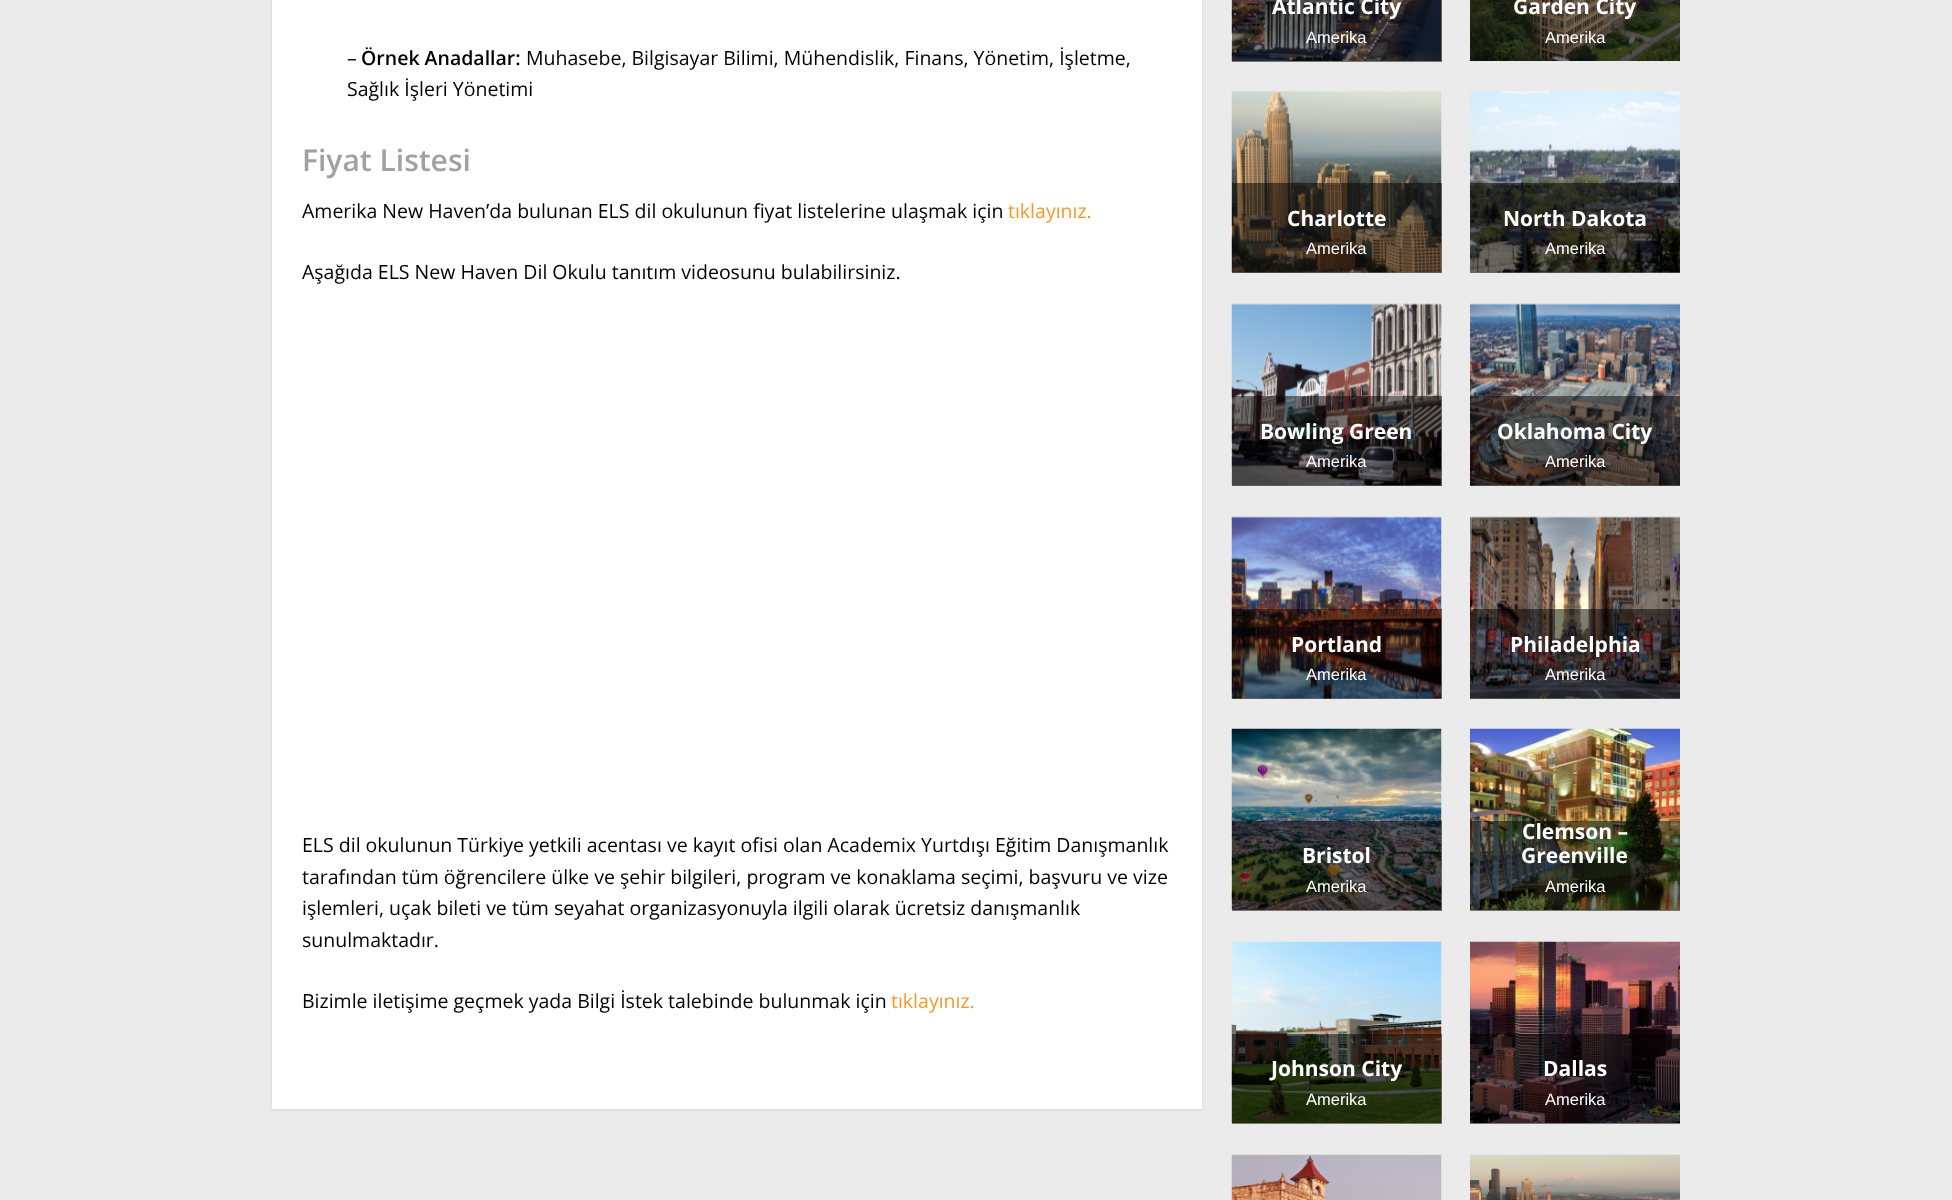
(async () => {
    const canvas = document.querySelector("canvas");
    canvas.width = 1952;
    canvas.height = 1200;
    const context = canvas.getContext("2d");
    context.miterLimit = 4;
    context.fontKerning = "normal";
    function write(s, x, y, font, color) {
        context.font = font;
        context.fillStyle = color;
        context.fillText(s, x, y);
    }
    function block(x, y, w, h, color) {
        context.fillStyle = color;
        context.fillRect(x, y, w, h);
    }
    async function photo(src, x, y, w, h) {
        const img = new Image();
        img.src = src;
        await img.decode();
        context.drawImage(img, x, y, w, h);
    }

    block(0, 0, 1952, 1200, "rgb(235, 235, 235)");
    block(1232, 0, 210, 62, "rgb(118, 118, 118)");
    context.fillStyle = "rgba(0, 0, 0, 0.1)";
    context.filter = "blur(1.5px)";
    context.beginPath();
    context.rect(272, -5, 930, 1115);
    context.fill();
    context.filter = "none";
    block(272, 0, 930, 1109, "rgb(255, 255, 255)");
    write("–", 347, 65, "19.5px Open Sans", "rgb(0, 0, 0)");
    write("Örnek Anadallar:", 361, 65, "600 19.5px Open Sans", "rgb(0, 0, 0)");
    write("Muhasebe, Bilgisayar Bilimi, Mühendislik, Finans, Yönetim, İşletme,", 526, 65, "19.5px Open Sans", "rgb(0, 0, 0)");
    write("Sağlık İşleri Yönetimi", 347, 96, "19.5px Open Sans", "rgb(0, 0, 0)");
    write("Fiyat Listesi", 302, 171, "600 30px Open Sans", "rgb(161, 161, 164)");
    write("Amerika New Haven’da bulunan ELS dil okulunun fiyat listelerine ulaşmak için", 302, 218, "19.5px Open Sans", "rgb(0, 0, 0)");
    write("tıklayınız.", 1008, 218, "19.5px Open Sans", "rgb(248, 152, 40)");
    write("Aşağıda ELS New Haven Dil Okulu tanıtım videosunu bulabilirsiniz.", 302, 279, "19.5px Open Sans", "rgb(0, 0, 0)");
    write("ELS dil okulunun Türkiye yetkili acentası ve kayıt ofisi olan Academix Yurtdışı Eğitim Danışmanlık", 302, 852, "19.5px Open Sans", "rgb(0, 0, 0)");
    write("tarafından tüm öğrencilere ülke ve şehir bilgileri, program ve konaklama seçimi, başvuru ve vize", 302, 884, "19.5px Open Sans", "rgb(0, 0, 0)");
    write("işlemleri, uçak bileti ve tüm seyahat organizasyonuyla ilgili olarak ücretsiz danışmanlık", 302, 915, "19.5px Open Sans", "rgb(0, 0, 0)");
    write("sunulmaktadır.", 302, 947, "19.5px Open Sans", "rgb(0, 0, 0)");
    write("Bizimle iletişime geçmek yada Bilgi İstek talebinde bulunmak için", 302, 1008, "19.5px Open Sans", "rgb(0, 0, 0)");
    write("tıklayınız.", 891, 1008, "19.5px Open Sans", "rgb(248, 152, 40)");
    await photo("media/1.png", 1231, 0, 211, 61);
    write("Atlantic City", 1272, 14, "bold 21px Open Sans", "rgb(255, 255, 255)");
    write("Amerika", 1306, 43, "16.5px Liberation Sans", "rgb(255, 255, 255)");
    await photo("media/2.png", 1470, 0, 210, 61);
    write("Garden City", 1513, 14, "bold 21px Open Sans", "rgb(255, 255, 255)");
    write("Amerika", 1545, 43, "16.5px Liberation Sans", "rgb(255, 255, 255)");
    await photo("media/3.png", 1231, 90, 211, 183);
    block(1232, 183, 210, 90, "rgba(0, 0, 0, 0.5)");
    write("Charlotte", 1287, 226, "bold 21px Open Sans", "rgb(255, 255, 255)");
    write("Amerika", 1306, 254, "16.5px Liberation Sans", "rgb(255, 255, 255)");
    await photo("media/4.png", 1470, 91, 210, 182);
    block(1470, 183, 210, 90, "rgba(0, 0, 0, 0.5)");
    write("North Dakota", 1503, 226, "bold 21px Open Sans", "rgb(255, 255, 255)");
    write("Amerika", 1545, 254, "16.5px Liberation Sans", "rgb(255, 255, 255)");
    await photo("media/5.png", 1231, 303, 211, 183);
    block(1232, 396, 210, 90, "rgba(0, 0, 0, 0.5)");
    write("Bowling Green", 1260, 439, "bold 21px Open Sans", "rgb(255, 255, 255)");
    write("Amerika", 1306, 467, "16.5px Liberation Sans", "rgb(255, 255, 255)");
    await photo("media/6.png", 1470, 303, 210, 183);
    block(1470, 396, 210, 90, "rgba(0, 0, 0, 0.5)");
    write("Oklahoma City", 1497, 439, "bold 21px Open Sans", "rgb(255, 255, 255)");
    write("Amerika", 1545, 467, "16.5px Liberation Sans", "rgb(255, 255, 255)");
    await photo("media/7.png", 1231, 516, 211, 183);
    block(1232, 609, 210, 90, "rgba(0, 0, 0, 0.5)");
    write("Portland", 1291, 652, "bold 21px Open Sans", "rgb(255, 255, 255)");
    write("Amerika", 1306, 680, "16.5px Liberation Sans", "rgb(255, 255, 255)");
    await photo("media/8.png", 1470, 516, 210, 183);
    block(1470, 609, 210, 90, "rgba(0, 0, 0, 0.5)");
    write("Philadelphia", 1510, 652, "bold 21px Open Sans", "rgb(255, 255, 255)");
    write("Amerika", 1545, 680, "16.5px Liberation Sans", "rgb(255, 255, 255)");
    await photo("media/9.png", 1231, 728, 211, 182);
    block(1232, 821, 210, 90, "rgba(0, 0, 0, 0.5)");
    write("Bristol", 1302, 863, "bold 21px Open Sans", "rgb(255, 255, 255)");
    write("Amerika", 1306, 892, "16.5px Liberation Sans", "rgb(255, 255, 255)");
    await photo("media/10.png", 1470, 728, 210, 182);
    block(1470, 821, 210, 90, "rgba(0, 0, 0, 0.5)");
    write("Clemson –", 1522, 839, "bold 21px Open Sans", "rgb(255, 255, 255)");
    write("Greenville", 1521, 863, "bold 21px Open Sans", "rgb(255, 255, 255)");
    write("Amerika", 1545, 892, "16.5px Liberation Sans", "rgb(255, 255, 255)");
    await photo("media/11.png", 1231, 941, 211, 182);
    block(1232, 1034, 210, 90, "rgba(0, 0, 0, 0.5)");
    write("Johnson City", 1271, 1076, "bold 21px Open Sans", "rgb(255, 255, 255)");
    write("Amerika", 1306, 1105, "16.5px Liberation Sans", "rgb(255, 255, 255)");
    await photo("media/12.png", 1470, 941, 210, 182);
    block(1470, 1034, 210, 90, "rgba(0, 0, 0, 0.5)");
    write("Dallas", 1543, 1076, "bold 21px Open Sans", "rgb(255, 255, 255)");
    write("Amerika", 1545, 1105, "16.5px Liberation Sans", "rgb(255, 255, 255)");
    await photo("media/13.png", 1231, 1154, 211, 46);
    await photo("media/14.png", 1470, 1154, 210, 46);
})();
